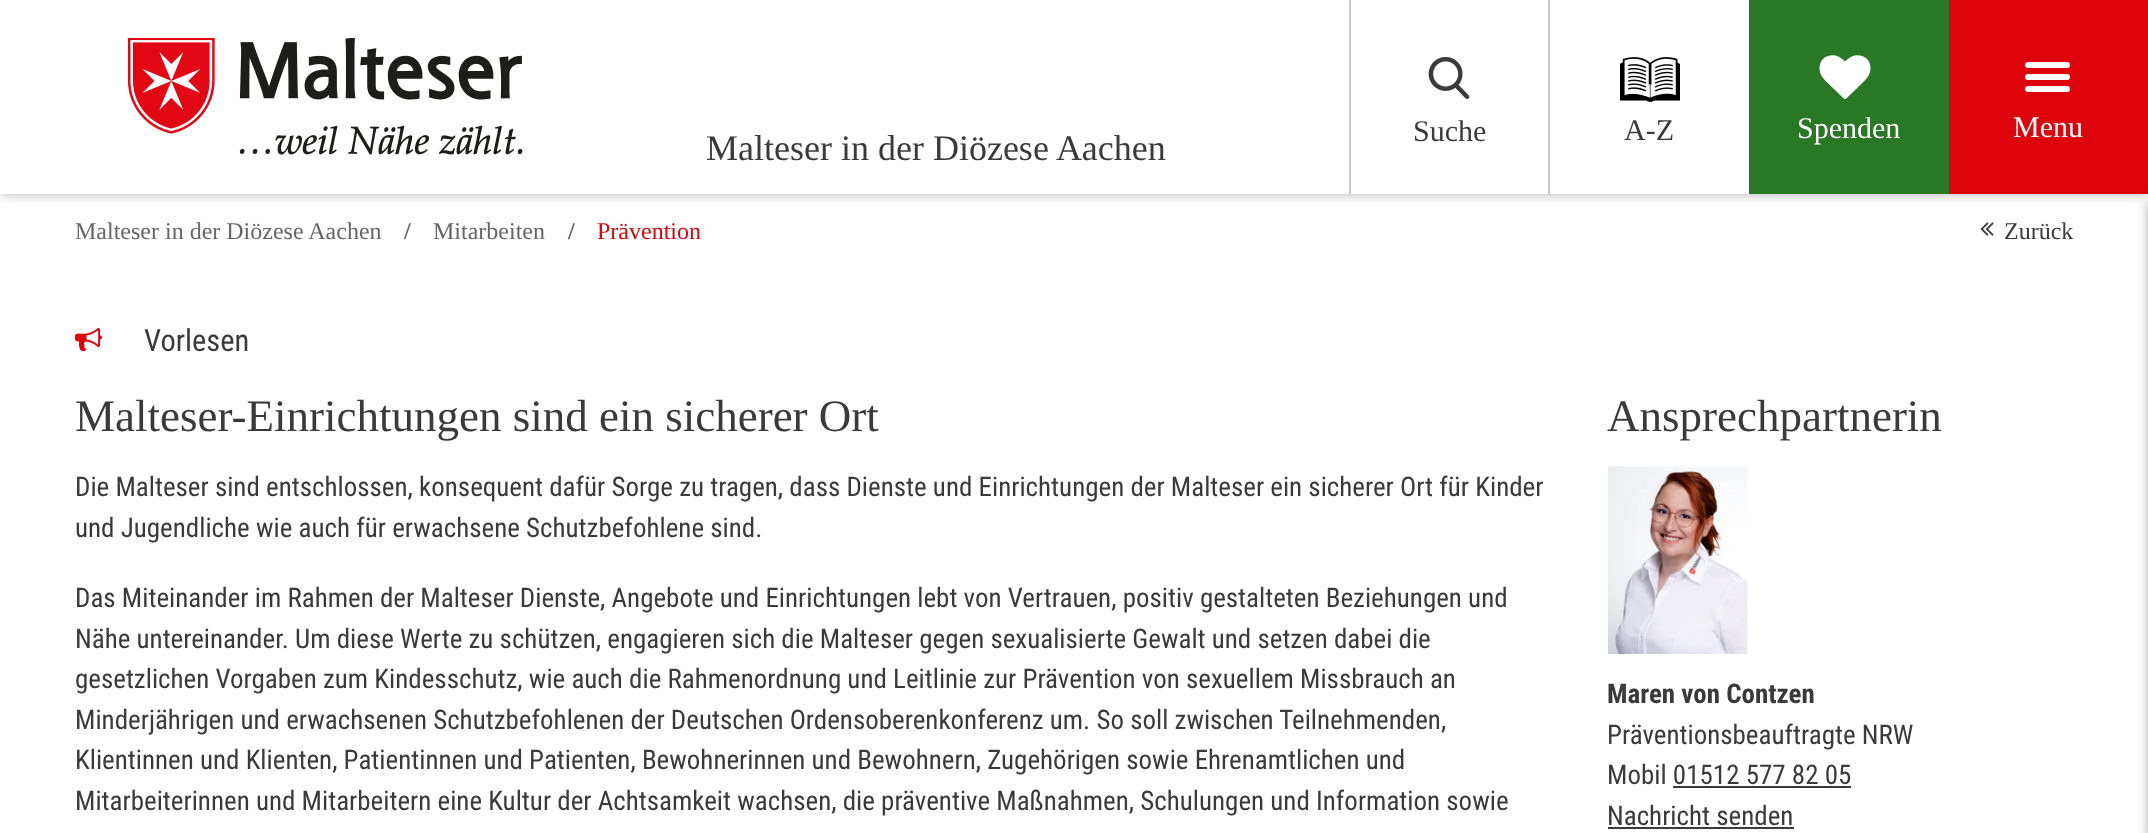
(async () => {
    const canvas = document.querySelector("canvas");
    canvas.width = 2148;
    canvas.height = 833;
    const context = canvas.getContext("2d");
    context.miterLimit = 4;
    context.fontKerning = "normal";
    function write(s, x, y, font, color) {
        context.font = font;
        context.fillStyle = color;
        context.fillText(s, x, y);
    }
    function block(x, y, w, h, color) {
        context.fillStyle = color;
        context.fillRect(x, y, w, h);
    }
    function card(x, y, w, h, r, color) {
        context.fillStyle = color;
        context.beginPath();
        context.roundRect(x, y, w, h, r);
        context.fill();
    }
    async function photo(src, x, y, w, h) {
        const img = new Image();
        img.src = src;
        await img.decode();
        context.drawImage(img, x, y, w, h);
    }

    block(0, 0, 2148, 833, "rgb(255, 255, 255)");
    context.fillStyle = "rgba(0, 0, 0, 0.3)";
    context.filter = "blur(6px)";
    context.beginPath();
    context.rect(0, 0, 2148, 194);
    context.fill();
    context.filter = "none";
    block(0, 0, 1749, 194, "rgb(255, 255, 255)");
    block(1349, 0, 2, 194, "rgb(199, 199, 198)");
    await photo("media/1.png", 1428, 57, 42, 42);
    write("Suche", 1413, 141, "30px Liberation Serif", "rgb(58, 58, 58)");
    block(1548, 0, 2, 194, "rgb(199, 199, 198)");
    await photo("media/2.png", 1620, 57, 60, 45);
    write("A-Z", 1624, 140, "30px Liberation Serif", "rgb(58, 58, 58)");
    block(1749, 0, 200, 194, "rgb(41, 120, 37)");
    await photo("media/3.png", 1819, 55, 52, 44);
    write("Spenden", 1797, 138, "30px Liberation Serif", "rgb(255, 255, 255)");
    block(1949, 0, 199, 194, "rgb(221, 4, 12)");
    card(2025, 62, 45, 6, 3, "rgb(255, 255, 255)");
    card(2025, 74, 45, 6, 3, "rgb(255, 255, 255)");
    card(2025, 86, 45, 6, 3, "rgb(255, 255, 255)");
    write("Menu", 2013, 137, "30px Liberation Serif", "rgb(255, 255, 255)");
    await photo("media/4.png", 128, 38, 395, 117);
    write("Malteser in der Diözese Aachen", 706, 160, "36px Liberation Serif", "rgb(58, 58, 58)");
    context.fillStyle = "rgba(0, 0, 0, 0.3)";
    context.filter = "blur(6px)";
    context.beginPath();
    context.rect(2148, 201, 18, 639);
    context.fill();
    context.filter = "none";
    write("Malteser in der Diözese Aachen", 75, 239, "24px Liberation Serif", "rgb(102, 102, 102)");
    write("/", 404, 239, "bold 24px Liberation Serif", "rgb(102, 102, 102)");
    write("Mitarbeiten", 433, 239, "24px Liberation Serif", "rgb(102, 102, 102)");
    write("/", 568, 239, "bold 24px Liberation Serif", "rgb(102, 102, 102)");
    write("Prävention", 597, 239, "24px Liberation Serif", "rgb(221, 4, 12)");
    await photo("media/5.png", 1980, 222, 14, 14);
    write("Zurück", 2004, 239, "24px Liberation Serif", "rgb(58, 58, 58)");
    await photo("media/6.png", 75, 327, 27, 24);
    write("Vorlesen", 144, 351, "30.5px Roboto Condensed", "rgb(58, 58, 58)");
    write("Malteser-Einrichtungen sind ein sicherer Ort", 75, 431, "45px Liberation Serif", "rgb(58, 58, 58)");
    write("Die Malteser sind entschlossen, konsequent dafür Sorge zu tragen, dass Dienste und Einrichtungen der Malteser ein sicherer Ort für Kinder", 75, 496, "27px Roboto Condensed", "rgb(58, 58, 58)");
    write("und Jugendliche wie auch für erwachsene Schutzbefohlene sind.", 75, 537, "27px Roboto Condensed", "rgb(58, 58, 58)");
    write("Das Miteinander im Rahmen der Malteser Dienste, Angebote und Einrichtungen lebt von Vertrauen, positiv gestalteten Beziehungen und", 75, 607, "27px Roboto Condensed", "rgb(58, 58, 58)");
    write("Nähe untereinander. Um diese Werte zu schützen, engagieren sich die Malteser gegen sexualisierte Gewalt und setzen dabei die", 75, 648, "27px Roboto Condensed", "rgb(58, 58, 58)");
    write("gesetzlichen Vorgaben zum Kindesschutz, wie auch die Rahmenordnung und Leitlinie zur Prävention von sexuellem Missbrauch an", 75, 688, "27px Roboto Condensed", "rgb(58, 58, 58)");
    write("Minderjährigen und erwachsenen Schutzbefohlenen der Deutschen Ordensoberenkonferenz um. So soll zwischen Teilnehmenden,", 75, 729, "27px Roboto Condensed", "rgb(58, 58, 58)");
    write("Klientinnen und Klienten, Patientinnen und Patienten, Bewohnerinnen und Bewohnern, Zugehörigen sowie Ehrenamtlichen und", 75, 769, "27px Roboto Condensed", "rgb(58, 58, 58)");
    write("Mitarbeiterinnen und Mitarbeitern eine Kultur der Achtsamkeit wachsen, die präventive Maßnahmen, Schulungen und Information sowie", 75, 810, "27px Roboto Condensed", "rgb(58, 58, 58)");
    write("Ansprechpartnerin", 1607, 431, "45px Liberation Serif", "rgb(58, 58, 58)");
    await photo("media/7.png", 1608, 466, 140, 188);
    write("Maren von Contzen", 1607, 703, "bold 27px Roboto Condensed", "rgb(58, 58, 58)");
    write("Präventionsbeauftragte NRW", 1607, 744, "27px Roboto Condensed", "rgb(58, 58, 58)");
    write("Mobil 01512 577 82 05", 1607, 784, "27px Roboto Condensed", "rgb(58, 58, 58)");
    block(1673, 786, 178, 2, "rgb(58, 58, 58)");
    write("Nachricht senden", 1607, 825, "27px Roboto Condensed", "rgb(58, 58, 58)");
    block(1608, 827, 186, 2, "rgb(58, 58, 58)");
})();
